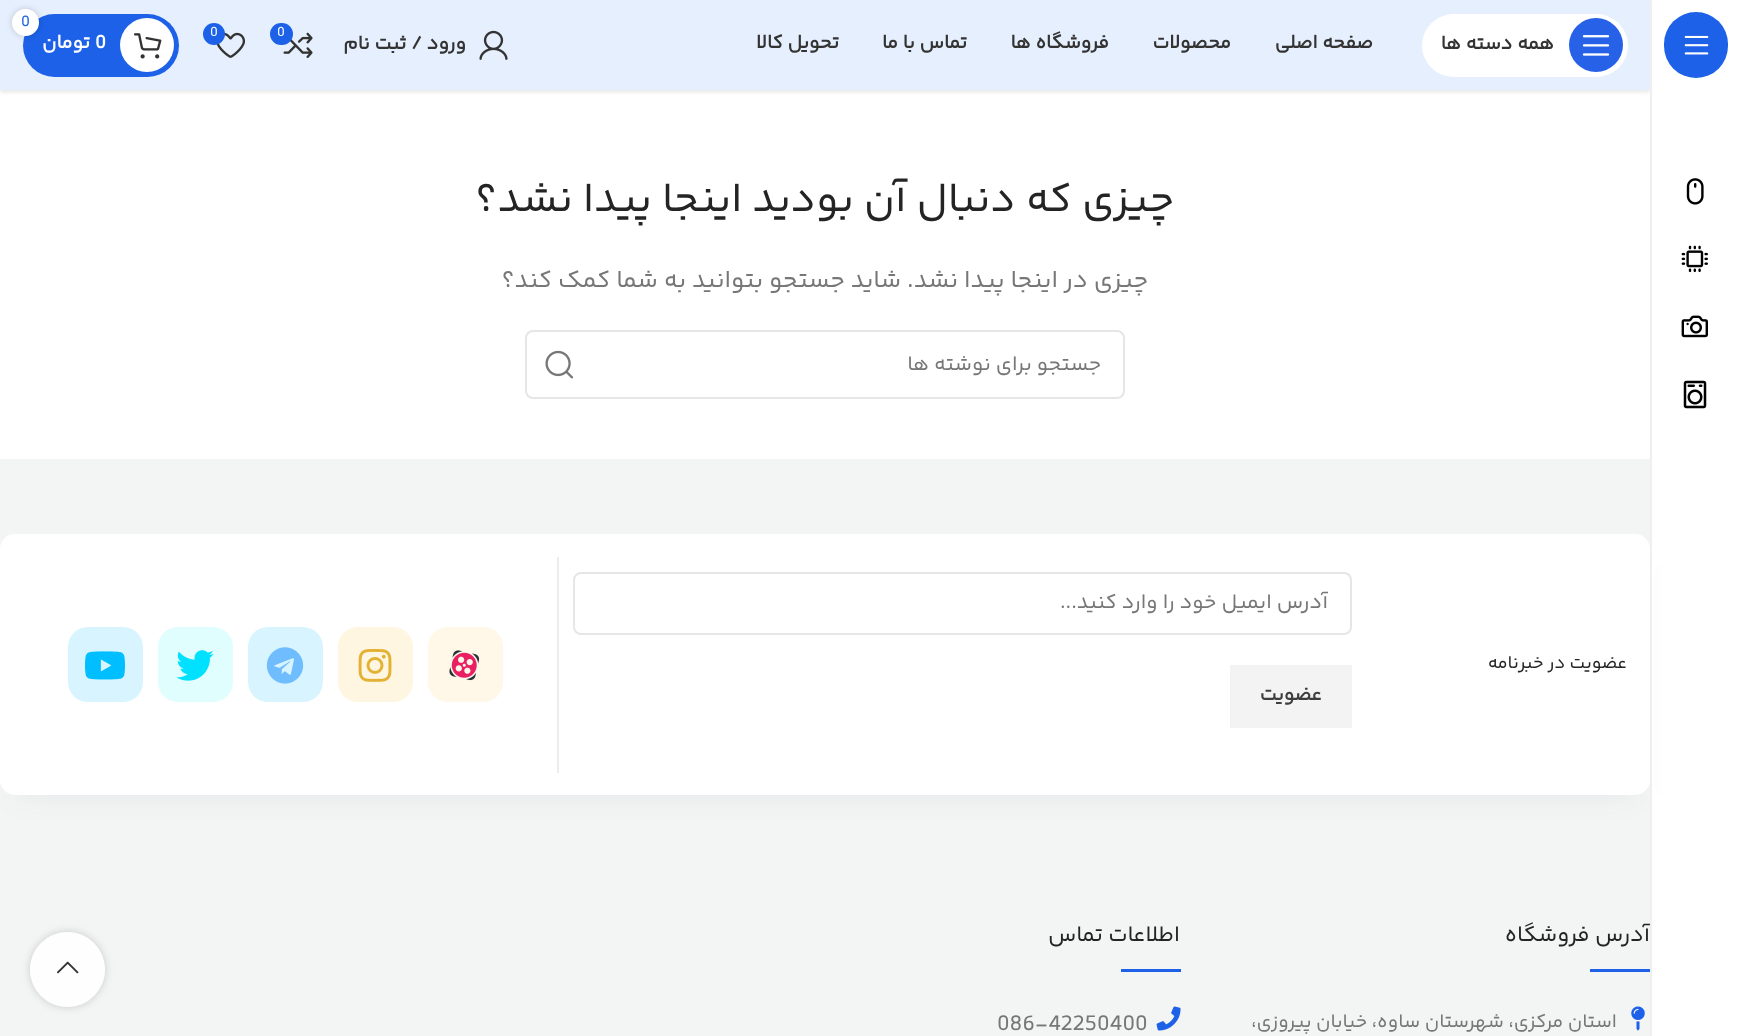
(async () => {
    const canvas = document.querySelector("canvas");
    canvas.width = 1739;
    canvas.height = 1036;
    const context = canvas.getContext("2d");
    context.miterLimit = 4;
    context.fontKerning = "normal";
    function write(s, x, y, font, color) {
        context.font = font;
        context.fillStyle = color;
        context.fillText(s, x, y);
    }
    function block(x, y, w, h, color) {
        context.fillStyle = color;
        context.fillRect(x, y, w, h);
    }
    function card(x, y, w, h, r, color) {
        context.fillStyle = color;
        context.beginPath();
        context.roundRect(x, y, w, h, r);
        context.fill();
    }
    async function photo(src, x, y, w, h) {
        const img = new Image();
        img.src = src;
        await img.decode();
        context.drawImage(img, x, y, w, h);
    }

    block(0, 0, 1739, 1036, "rgb(255, 255, 255)");
    context.fillStyle = "rgba(0, 0, 0, 0.1)";
    context.filter = "blur(2px)";
    context.beginPath();
    context.rect(0, 2, 1650, 90);
    context.fill();
    context.filter = "none";
    block(1652, 6, 1, 82, "rgb(255, 255, 255)");
    block(0, 459, 1650, 577, "rgb(243, 244, 244)");
    context.fillStyle = "rgba(56, 69, 80, 0.07)";
    context.filter = "blur(15px)";
    context.beginPath();
    context.rect(15, 564, 1620, 231);
    context.fill();
    context.filter = "none";
    context.direction = "rtl";
    write("آدرس فروشگاه", 1650, 941, "22.5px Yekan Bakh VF", "rgb(36, 36, 36)");
    block(1650, 0, 2, 1036, "rgb(239, 239, 239)");
    card(1664, 12, 64, 66, 32, "rgb(28, 97, 231)");
    await photo("media/1.png", 1684, 35, 25, 20);
    await photo("media/2.png", 1686, 178, 18, 27);
    await photo("media/3.png", 1681, 245, 27, 28);
    await photo("media/4.png", 1681, 315, 27, 23);
    await photo("media/5.png", 1683, 380, 24, 29);
    block(0, 0, 1650, 90, "rgb(230, 239, 253)");
    card(1422, 14, 206, 63, 31.5, "rgb(255, 255, 255)");
    context.fillStyle = "rgb(39, 97, 231)";
    context.beginPath();
    context.arc(1596, 45, 27, 0, Math.PI * 2);
    context.fill();
    await photo("media/6.png", 1582, 35, 28, 21);
    write("همه دسته ها", 1554, 49, "bold 19.5px Yekan Bakh VF", "rgb(51, 51, 51)");
    write("صفحه اصلی", 1373, 48, "bold 19.5px Yekan Bakh VF", "rgb(51, 51, 51)");
    write("محصولات", 1231, 48, "bold 19.5px Yekan Bakh VF", "rgb(51, 51, 51)");
    write("فروشگاه ها", 1109, 48, "bold 19.5px Yekan Bakh VF", "rgb(51, 51, 51)");
    write("تماس با ما", 967, 48, "bold 19.5px Yekan Bakh VF", "rgb(51, 51, 51)");
    write("تحویل کالا", 839, 48, "bold 19.5px Yekan Bakh VF", "rgb(51, 51, 51)");
    await photo("media/7.png", 283, 32, 30, 26);
    card(270, 23, 23, 22, 11, "rgb(28, 97, 231)");
    context.direction = "ltr";
    write("0", 277, 36, "14px Yekan Bakh VF", "rgb(255, 255, 255)");
    await photo("media/8.png", 216, 32, 30, 26);
    context.fillStyle = "rgb(28, 97, 231)";
    context.beginPath();
    context.arc(214, 34, 11, 0, Math.PI * 2);
    context.fill();
    write("0", 210, 36, "14px Yekan Bakh VF", "rgb(255, 255, 255)");
    card(23, 14, 156, 63, 31.5, "rgb(28, 97, 231)");
    context.fillStyle = "rgb(255, 255, 255)";
    context.beginPath();
    context.arc(147, 45, 27, 0, Math.PI * 2);
    context.fill();
    context.fillStyle = "rgba(0, 0, 0, 0.17)";
    context.filter = "blur(3px)";
    context.beginPath();
    context.roundRect(12, 9, 27, 27, 13.5);
    context.fill();
    context.filter = "none";
    context.fillStyle = "rgb(255, 255, 255)";
    context.beginPath();
    context.arc(25.5, 22.5, 13.5, 0, Math.PI * 2);
    context.fill();
    write("0", 21, 26, "16px Yekan Bakh VF", "rgb(28, 97, 231)");
    await photo("media/9.png", 134, 33, 28, 26);
    write("0", 95, 48, "bold 19.5px Yekan Bakh VF", "rgb(255, 255, 255)");
    context.direction = "rtl";
    write("تومان", 90, 48, "bold 19.5px Yekan Bakh VF", "rgb(255, 255, 255)");
    await photo("media/10.png", 479, 30, 29, 30);
    write("ورود / ثبت نام", 466, 49, "bold 19.5px Yekan Bakh VF", "rgb(51, 51, 51)");
    write("چیزی که دنبال آن بودید اینجا پیدا نشد؟", 1174, 211, "42px Yekan Bakh VF", "rgb(36, 36, 36)");
    write("چیزی در اینجا پیدا نشد. شاید جستجو بتوانید به شما کمک کند؟", 1148, 287, "24.75px Yekan Bakh VF", "rgb(119, 119, 119)");
    context.beginPath();
    context.roundRect(526, 331, 598, 67, 7);
    context.strokeStyle = "rgb(230, 230, 230)";
    context.lineWidth = 2;
    context.stroke();
    write("جستجو برای نوشته ها", 1101, 370, "21px Yekan Bakh VF", "rgb(119, 119, 119)");
    await photo("media/11.png", 545, 350, 29, 29);
    card(0, 534, 1650, 261, 15, "rgb(255, 255, 255)");
    write("عضویت در خبرنامه", 1627, 668, "18px Yekan Bakh VF", "rgb(36, 36, 36)");
    context.beginPath();
    context.roundRect(574, 573, 777, 61, 7);
    context.stroke();
    context.save();
    context.beginPath();
    context.rect(597, 587, 731, 33);
    context.clip();
    write("آدرس ایمیل خود را وارد کنید...", 1328, 608, "21px Yekan Bakh VF", "rgb(119, 119, 119)");
    context.restore();
    block(1230, 665, 122, 63, "rgb(243, 243, 243)");
    write("عضویت", 1322, 700, "bold 19.5px Yekan Bakh VF", "rgb(62, 62, 62)");
    block(557, 557, 2, 216, "rgb(237, 237, 237)");
    card(428, 627, 75, 75, 20, "rgb(255, 247, 231)");
    await photo("media/12.png", 449, 650, 31, 31);
    card(338, 627, 75, 75, 20, "rgb(255, 246, 225)");
    await photo("media/13.png", 358, 648, 34, 34);
    card(248, 627, 75, 75, 20, "rgb(216, 245, 255)");
    await photo("media/14.png", 266, 647, 38, 37);
    card(158, 627, 75, 75, 20, "rgb(224, 254, 254)");
    await photo("media/15.png", 176, 650, 38, 31);
    card(68, 627, 75, 75, 20, "rgb(216, 245, 255)");
    await photo("media/16.png", 85, 651, 40, 29);
    block(1590, 969, 60, 3, "rgb(28, 97, 231)");
    await photo("media/17.png", 1631, 1006, 14, 25);
    write("استان مرکزی، شهرستان ساوه، خیابان پیروزی،", 1617, 1027, "19.5px Yekan Bakh VF", "rgb(119, 119, 119)");
    write("اطلاعات تماس", 1180, 941, "22.5px Yekan Bakh VF", "rgb(36, 36, 36)");
    block(1121, 969, 60, 3, "rgb(28, 97, 231)");
    await photo("media/18.png", 1156, 1006, 25, 25);
    context.direction = "ltr";
    write("086-42250400", 997, 1030, "22.5px Yekan Bakh VF", "rgb(119, 119, 119)");
    context.save();
    context.beginPath();
    context.moveTo(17, 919);
    context.lineTo(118, 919);
    context.lineTo(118, 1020);
    context.lineTo(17, 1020);
    context.closePath();
    context.moveTo(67.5, 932);
    context.bezierCurveTo(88, 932, 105, 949, 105, 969.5);
    context.bezierCurveTo(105, 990, 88, 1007, 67.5, 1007);
    context.bezierCurveTo(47, 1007, 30, 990, 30, 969.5);
    context.bezierCurveTo(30, 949, 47, 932, 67.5, 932);
    context.closePath();
    context.clip("evenodd");
    context.fillStyle = "rgba(0, 0, 0, 0.17)";
    context.filter = "blur(4px)";
    context.beginPath();
    context.roundRect(30, 932, 75, 75, 37.5);
    context.fill();
    context.filter = "none";
    context.restore();
    context.fillStyle = "rgba(255, 255, 255, 0.9)";
    context.beginPath();
    context.arc(67.5, 969.5, 37.5, 0, Math.PI * 2);
    context.fill();
    await photo("media/19.png", 57, 961, 22, 13);
})();
